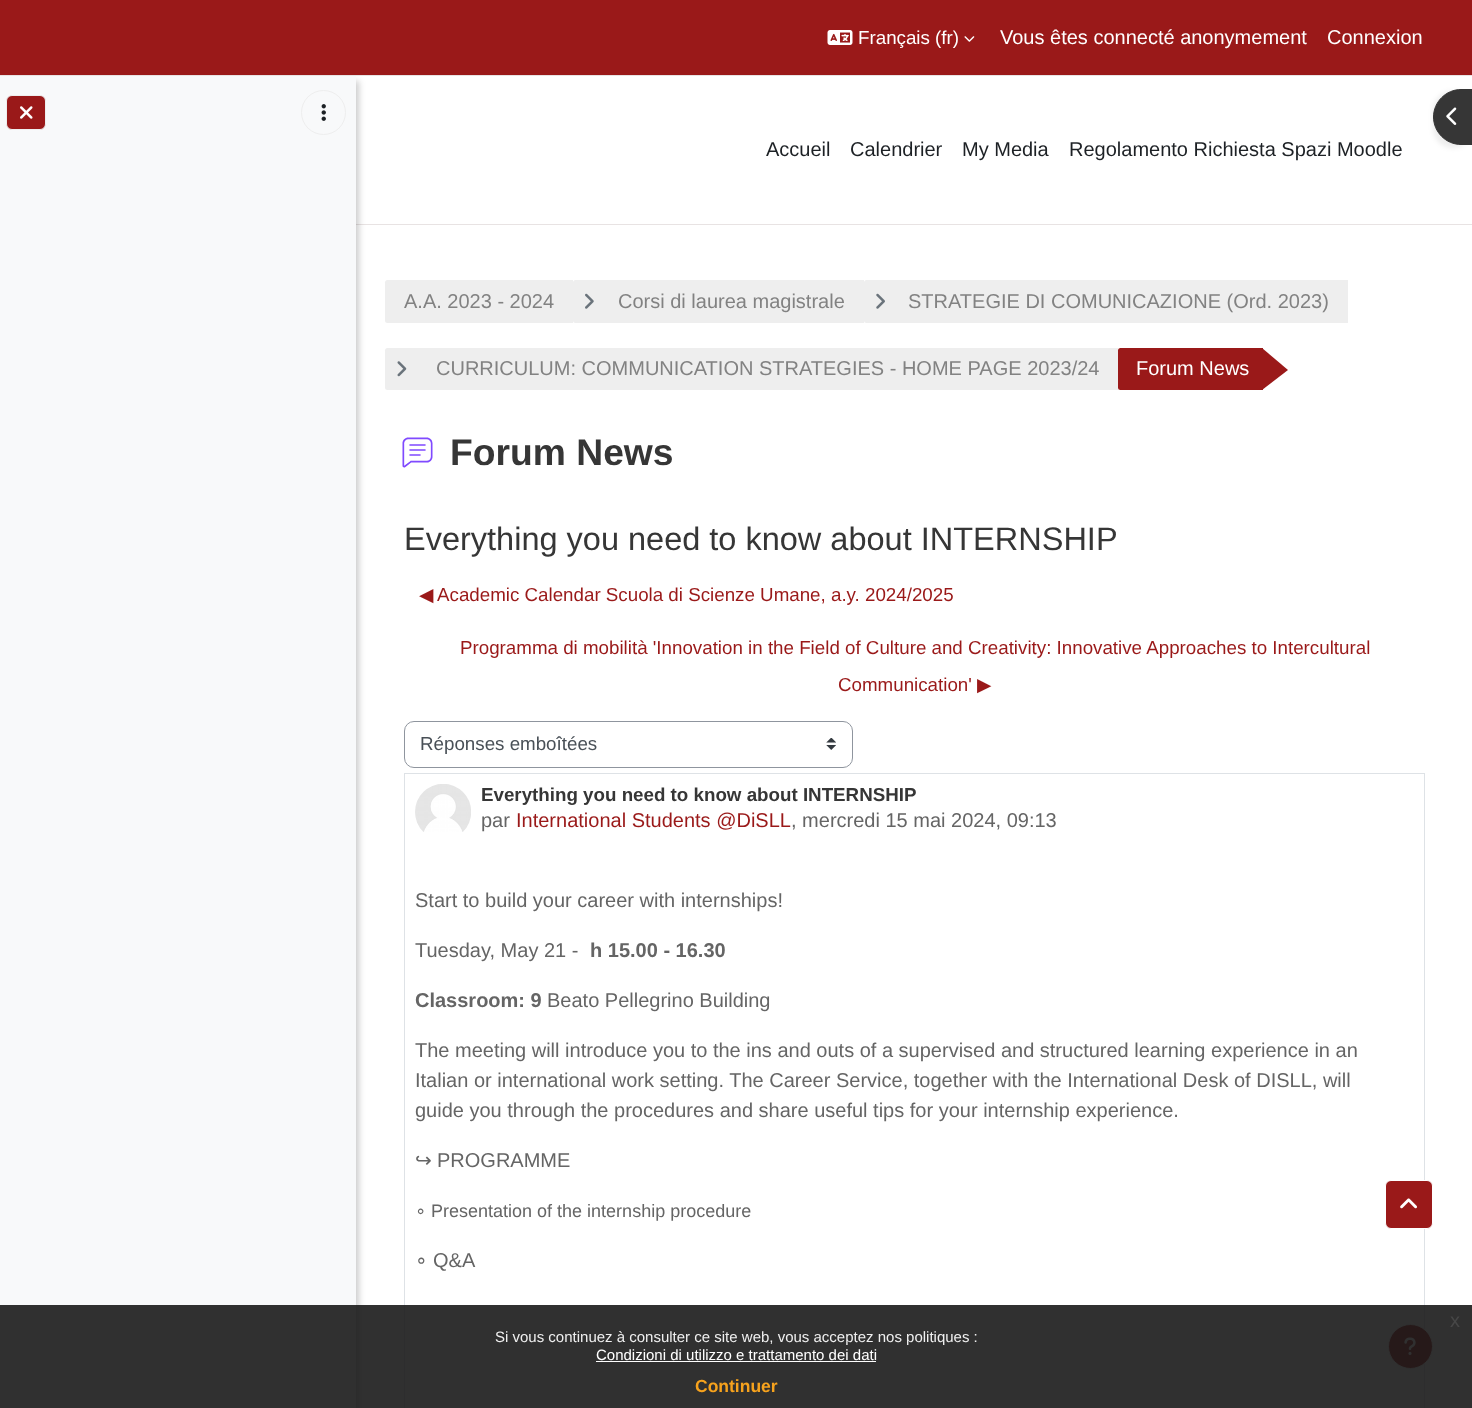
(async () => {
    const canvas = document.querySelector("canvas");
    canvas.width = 1472;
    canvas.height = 1408;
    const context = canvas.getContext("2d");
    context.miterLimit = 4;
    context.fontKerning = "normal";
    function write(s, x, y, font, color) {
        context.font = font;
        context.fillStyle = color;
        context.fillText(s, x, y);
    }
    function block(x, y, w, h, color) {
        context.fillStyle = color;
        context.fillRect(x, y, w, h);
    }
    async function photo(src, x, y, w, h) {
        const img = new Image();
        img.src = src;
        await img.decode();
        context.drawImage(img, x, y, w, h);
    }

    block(0, 0, 1472, 1408, "rgb(255, 255, 255)");
    block(356, 224, 1116, 1, "rgb(232, 227, 227)");
    context.fillStyle = "rgba(0, 0, 0, 0.2)";
    context.filter = "blur(3px)";
    context.beginPath();
    context.rect(3, 81, 356, 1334);
    context.fill();
    context.filter = "none";
    block(0, 0, 1472, 75, "rgb(154, 25, 25)");
    block(0, 75, 1472, 1, "rgb(232, 227, 227)");
    await photo("media/1.png", 827, 30, 26, 15);
    write("Français (fr)", 858, 44, "18.75px Liberation Sans", "rgb(255, 255, 255)");
    await photo("media/2.png", 964, 36, 11, 6);
    write("Vous êtes connecté anonymement", 1000, 44, "20px Liberation Sans", "rgb(255, 255, 255)");
    write("Connexion", 1327, 44, "20px Liberation Sans", "rgb(255, 255, 255)");
    block(0, 76, 356, 1332, "rgb(248, 249, 250)");
    context.fillStyle = "rgb(154, 25, 25)";
    context.beginPath();
    context.roundRect(6.5, 95.5, 39, 34, 5.5);
    context.fill();
    context.strokeStyle = "rgb(238, 238, 238)";
    context.stroke();
    await photo("media/3.png", 20, 106, 13, 13);
    context.beginPath();
    context.arc(323.5, 112.5, 22, 0, Math.PI * 2);
    context.stroke();
    await photo("media/4.png", 321, 104, 5, 17);
    write("Accueil", 766, 156, "20px Liberation Sans", "rgb(29, 33, 37)");
    write("Calendrier", 850, 156, "20px Liberation Sans", "rgb(29, 33, 37)");
    write("My Media", 962, 156, "20px Liberation Sans", "rgb(29, 33, 37)");
    write("Regolamento Richiesta Spazi Moodle", 1069, 156, "20px Liberation Sans", "rgb(29, 33, 37)");
    context.fillStyle = "rgba(0, 0, 0, 0.07)";
    context.filter = "blur(2.5px)";
    context.beginPath();
    context.roundRect(1433, 91, 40, 57, 28);
    context.fill();
    context.filter = "none";
    context.fillStyle = "rgb(54, 54, 54)";
    context.beginPath();
    context.moveTo(1461, 89.5);
    context.lineTo(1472.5, 89.5);
    context.lineTo(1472.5, 144.5);
    context.lineTo(1461, 144.5);
    context.bezierCurveTo(1446, 144.5, 1433.5, 132, 1433.5, 117);
    context.bezierCurveTo(1433.5, 102, 1446, 89.5, 1461, 89.5);
    context.closePath();
    context.fill();
    context.strokeStyle = "rgb(54, 54, 54)";
    context.stroke();
    await photo("media/5.png", 1446, 107, 11, 18);
    context.fillStyle = "rgb(238, 238, 238)";
    context.beginPath();
    context.roundRect(385, 280, 188, 43, [2.5, 0, 0, 2.5]);
    context.fill();
    write("A.A. 2023 - 2024", 404, 308, "20px Liberation Sans", "rgb(130, 130, 130)");
    context.fillStyle = "rgb(238, 238, 238)";
    context.beginPath();
    context.roundRect(573, 280, 291, 43, [2.5, 0, 0, 2.5]);
    context.fill();
    await photo("media/6.png", 585, 293, 9, 16);
    write("Corsi di laurea magistrale", 618, 308, "20px Liberation Sans", "rgb(130, 130, 130)");
    context.fillStyle = "rgb(238, 238, 238)";
    context.beginPath();
    context.roundRect(864, 280, 484, 43, [2.5, 0, 0, 2.5]);
    context.fill();
    await photo("media/7.png", 876, 293, 9, 16);
    write("STRATEGIE DI COMUNICAZIONE (Ord. 2023)", 908, 308, "20px Liberation Sans", "rgb(130, 130, 130)");
    context.fillStyle = "rgb(238, 238, 238)";
    context.beginPath();
    context.roundRect(385, 348, 733, 42, [2.5, 0, 0, 2.5]);
    context.fill();
    await photo("media/8.png", 397, 361, 10, 16);
    write("CURRICULUM: COMMUNICATION STRATEGIES - HOME PAGE 2023/24", 436, 375, "20px Liberation Sans", "rgb(130, 130, 130)");
    context.fillStyle = "rgb(154, 25, 25)";
    context.beginPath();
    context.roundRect(1118, 348, 145, 42, [2.5, 0, 0, 2.5]);
    context.fill();
    write("Forum News", 1136, 375, "20px Liberation Sans", "rgb(255, 255, 255)");
    context.fillStyle = "rgb(154, 25, 25)";
    context.beginPath();
    context.moveTo(1262, 390);
    context.lineTo(1262, 348);
    context.lineTo(1288, 370);
    context.closePath();
    context.fill();
    await photo("media/9.png", 402, 437, 31, 31);
    write("Forum News", 450, 465, "bold 37.25px Liberation Sans", "rgb(54, 54, 54)");
    write("Everything you need to know about INTERNSHIP", 404, 550, "32.5px Liberation Sans", "rgb(54, 54, 54)");
    write("◀︎", 419, 601, "18.75px DejaVu Sans", "rgb(154, 25, 25)");
    write("Academic Calendar Scuola di Scienze Umane, a.y. 2024/2025", 437, 601, "18.75px Liberation Sans", "rgb(154, 25, 25)");
    write("Programma di mobilità 'Innovation in the Field of Culture and Creativity: Innovative Approaches to Intercultural", 460, 654, "18.75px Liberation Sans", "rgb(154, 25, 25)");
    write("Communication'", 838, 691, "18.75px Liberation Sans", "rgb(154, 25, 25)");
    write("▶︎", 977, 691, "18.75px DejaVu Sans", "rgb(154, 25, 25)");
    await photo("media/10.png", 826, 738, 10, 12);
    context.beginPath();
    context.roundRect(404.5, 721.5, 448, 46, 9.5);
    context.strokeStyle = "rgb(143, 149, 158)";
    context.stroke();
    write("Réponses emboîtées", 420, 750, "18.75px Liberation Sans", "rgb(73, 80, 87)");
    context.strokeStyle = "rgb(222, 226, 230)";
    context.strokeRect(404.5, 773.5, 1020, 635);
    await photo("media/11.png", 415, 784, 56, 48);
    write("Everything you need to know about INTERNSHIP", 481, 801, "bold 18.75px Liberation Sans", "rgb(54, 54, 54)");
    write("par", 481, 827, "20px Liberation Sans", "rgb(101, 101, 101)");
    write("International Students @DiSLL", 516, 827, "20px Liberation Sans", "rgb(154, 25, 25)");
    write(", mercredi 15 mai 2024, 09:13", 791, 827, "20px Liberation Sans", "rgb(101, 101, 101)");
    write("Start to build your career with internships!", 415, 907, "20px Liberation Sans", "rgb(101, 101, 101)");
    write("Tuesday, May 21 -", 415, 957, "20px Liberation Sans", "rgb(101, 101, 101)");
    write("h 15.00 - 16.30", 590, 957, "bold 20px Liberation Sans", "rgb(101, 101, 101)");
    write("Classroom: 9", 415, 1007, "bold 20px Liberation Sans", "rgb(101, 101, 101)");
    write("Beato Pellegrino Building", 547, 1007, "20px Liberation Sans", "rgb(101, 101, 101)");
    write("The meeting will introduce you to the ins and outs of a supervised and structured learning experience in an", 415, 1057, "20px Liberation Sans", "rgb(101, 101, 101)");
    write("Italian or international work setting. The Career Service, together with the International Desk of DISLL, will", 415, 1087, "20px Liberation Sans", "rgb(101, 101, 101)");
    write("guide you through the procedures and share useful tips for your internship experience.", 415, 1117, "20px Liberation Sans", "rgb(101, 101, 101)");
    write("↪", 415, 1167, "20px DejaVu Sans", "rgb(101, 101, 101)");
    write("PROGRAMME", 437, 1167, "20px Liberation Sans", "rgb(101, 101, 101)");
    write("∘", 415, 1217, "18px DejaVu Sans", "rgb(101, 101, 101)");
    write("Presentation of the internship procedure", 431, 1217, "18px Liberation Sans", "rgb(101, 101, 101)");
    write("∘", 415, 1267, "20px DejaVu Sans", "rgb(101, 101, 101)");
    write("Q&A", 433, 1267, "20px Liberation Sans", "rgb(101, 101, 101)");
    context.fillStyle = "rgb(154, 25, 25)";
    context.beginPath();
    context.roundRect(1385.5, 1180.5, 47, 48, 5.5);
    context.fill();
    context.strokeStyle = "rgb(255, 255, 255)";
    context.stroke();
    await photo("media/12.png", 1400, 1198, 17, 11);
    context.beginPath();
    context.arc(1410.5, 1346.5, 22, 0, Math.PI * 2);
    context.fill();
    context.strokeStyle = "rgb(238, 238, 238)";
    context.stroke();
    await photo("media/13.png", 1404, 1337, 12, 18);
    block(0, 1305, 1472, 103, "rgba(25, 25, 25, 0.9)");
    write("x", 1450, 1327, "20px Liberation Sans", "rgb(71, 71, 71)");
    write("Si vous continuez à consulter ce site web, vous acceptez nos politiques :", 495, 1342, "15px Liberation Sans", "rgb(239, 239, 239)");
    write("Condizioni di utilizzo e trattamento dei dati", 596, 1360, "15px Liberation Sans", "rgb(255, 255, 255)");
    block(596, 1361, 280, 1, "rgb(255, 255, 255)");
    write("Continuer", 695, 1392, "bold 17.5px Liberation Sans", "rgb(246, 162, 29)");
})();
